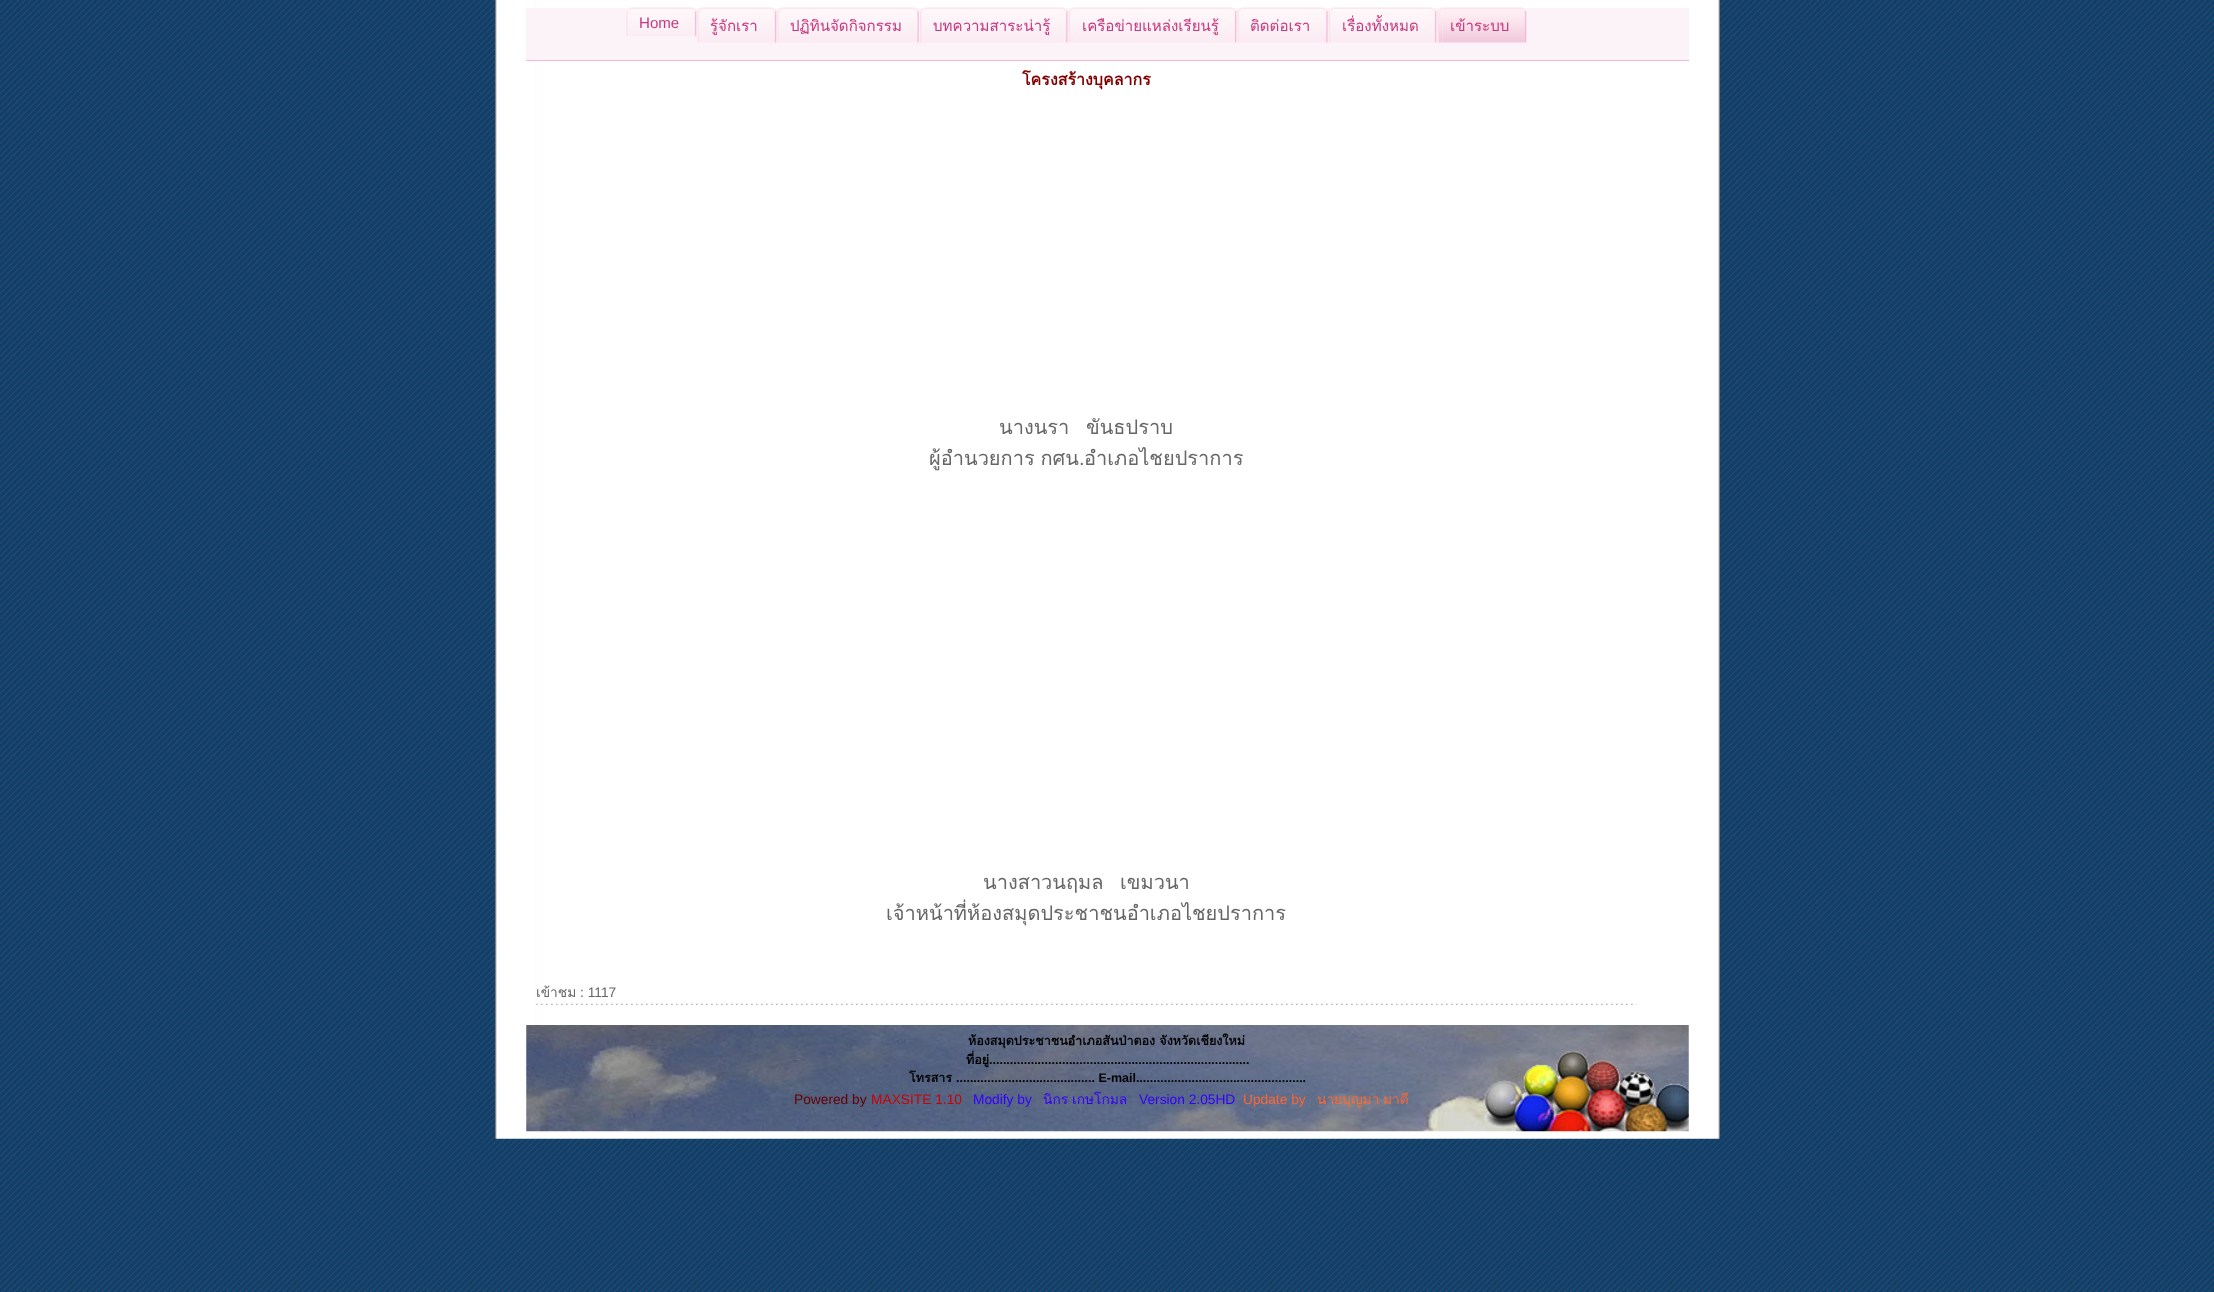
(async () => {
    const canvas = document.querySelector("canvas");
    canvas.width = 2214;
    canvas.height = 1292;
    const context = canvas.getContext("2d");
    context.miterLimit = 4;
    context.fontKerning = "normal";
    function write(s, x, y, font, color) {
        context.font = font;
        context.fillStyle = color;
        context.fillText(s, x, y);
    }
    function block(x, y, w, h, color) {
        context.fillStyle = color;
        context.fillRect(x, y, w, h);
    }
    async function photo(src, x, y, w, h) {
        const img = new Image();
        img.src = src;
        await img.decode();
        context.drawImage(img, x, y, w, h);
    }

    block(0, 0, 2214, 1292, "rgb(255, 255, 255)");
    await photo("media/1.png", 0, 0, 2214, 1292);
    await photo("media/2.png", 495, 0, 1225, 1139);
    block(526, 8, 1163, 52, "rgb(252, 243, 248)");
    block(526, 60, 1163, 1, "rgb(244, 183, 214)");
    await photo("media/3.png", 626, 7, 5, 29);
    await photo("media/4.png", 631, 7, 66, 30);
    write("Home", 639, 28, "15.1px Liberation Sans", "rgb(199, 55, 125)");
    await photo("media/5.png", 697, 7, 6, 36);
    await photo("media/6.png", 702, 7, 75, 36);
    write("รู้จักเรา", 710, 31, "15.1px Loma", "rgb(199, 55, 125)");
    await photo("media/5.png", 777, 7, 6, 36);
    await photo("media/7.png", 782, 7, 137, 36);
    write("ปฏิทินจัดกิจกรรม", 790, 31, "15.1px Loma", "rgb(199, 55, 125)");
    await photo("media/8.png", 920, 7, 5, 36);
    await photo("media/9.png", 925, 7, 143, 36);
    write("บทความสาระน่ารู้", 933, 31, "15.1px Loma", "rgb(199, 55, 125)");
    await photo("media/10.png", 1068, 7, 6, 36);
    await photo("media/11.png", 1074, 7, 163, 36);
    write("เครือข่ายแหล่งเรียนรู้", 1082, 31, "15.1px Loma", "rgb(199, 55, 125)");
    await photo("media/5.png", 1237, 7, 6, 36);
    await photo("media/12.png", 1242, 7, 86, 36);
    write("ติดต่อเรา", 1250, 31, "15.1px Loma", "rgb(199, 55, 125)");
    await photo("media/13.png", 1328, 7, 6, 36);
    await photo("media/14.png", 1334, 7, 103, 36);
    write("เรื่องทั้งหมด", 1342, 31, "15.1px Loma", "rgb(199, 55, 125)");
    await photo("media/15.png", 1437, 7, 6, 36);
    await photo("media/16.png", 1442, 7, 85, 36);
    write("เข้าระบบ", 1450, 31, "15.1px Loma", "rgb(199, 55, 125)");
    write("โครงสร้างบุคลากร", 1022, 85, "bold 16px Loma", "rgb(128, 0, 0)");
    write("นางนรา", 999, 434, "20px Loma", "rgb(102, 102, 102)");
    write("ขันธปราบ", 1086, 434, "20px Loma", "rgb(102, 102, 102)");
    context.wordSpacing = "-1px";
    write("ผู้อำนวยการ กศน", 929, 465, "20px Loma", "rgb(102, 102, 102)");
    context.wordSpacing = "0px";
    write(".", 1079, 465, "20px Liberation Sans", "rgb(102, 102, 102)");
    write("อำเภอไชยปราการ", 1084, 465, "20px Loma", "rgb(102, 102, 102)");
    write("นางสาวนฤมล", 983, 889, "20px Loma", "rgb(102, 102, 102)");
    write("เขมวนา", 1120, 889, "20px Loma", "rgb(102, 102, 102)");
    write("เจ้าหน้าที่ห้องสมุดประชาชนอำเภอไชยปราการ", 886, 920, "20px Loma", "rgb(102, 102, 102)");
    write("เข้าชม", 536, 997, "13.75px Loma", "rgb(102, 102, 102)");
    write(": 1117", 580, 997, "13.75px Liberation Sans", "rgb(102, 102, 102)");
    await photo("media/17.png", 536, 1003, 1101, 2);
    await photo("media/18.png", 526, 1025, 1163, 107);
    write("ห้องสมุดประชาชนอำเภอสันป่าตอง จังหวัดเชียงใหม่", 968, 1045, "bold 12.5px Loma", "rgb(0, 0, 0)");
    write("ที่อยู่", 966, 1064, "bold 12.5px Loma", "rgb(0, 0, 0)");
    write("...........................................................................", 989, 1064, "bold 12.5px Liberation Sans", "rgb(0, 0, 0)");
    write("โทรสาร", 909, 1082, "bold 12.5px Loma", "rgb(0, 0, 0)");
    write("........................................ E-mail.................................................", 956, 1082, "bold 12.5px Liberation Sans", "rgb(0, 0, 0)");
    write("Powered by", 794, 1104, "13.75px Liberation Sans", "rgb(102, 0, 0)");
    write("MAXSITE 1.10", 871, 1104, "13.75px Liberation Sans", "rgb(204, 0, 0)");
    write("Modify by", 973, 1104, "13.75px Liberation Sans", "rgb(51, 0, 255)");
    write("นิกร", 1043, 1104, "13.75px Loma", "rgb(51, 0, 255)");
    write("เกษโกมล", 1072, 1104, "13.75px Loma", "rgb(51, 0, 255)");
    write("Version 2.05HD", 1139, 1104, "13.75px Liberation Sans", "rgb(51, 0, 255)");
    write("Update by", 1243, 1104, "13.75px Liberation Sans", "rgb(255, 102, 51)");
    write("นายบุญมา", 1317, 1104, "13.75px Loma", "rgb(255, 102, 51)");
    write("มาดี", 1383, 1104, "13.75px Loma", "rgb(255, 102, 51)");
})();
